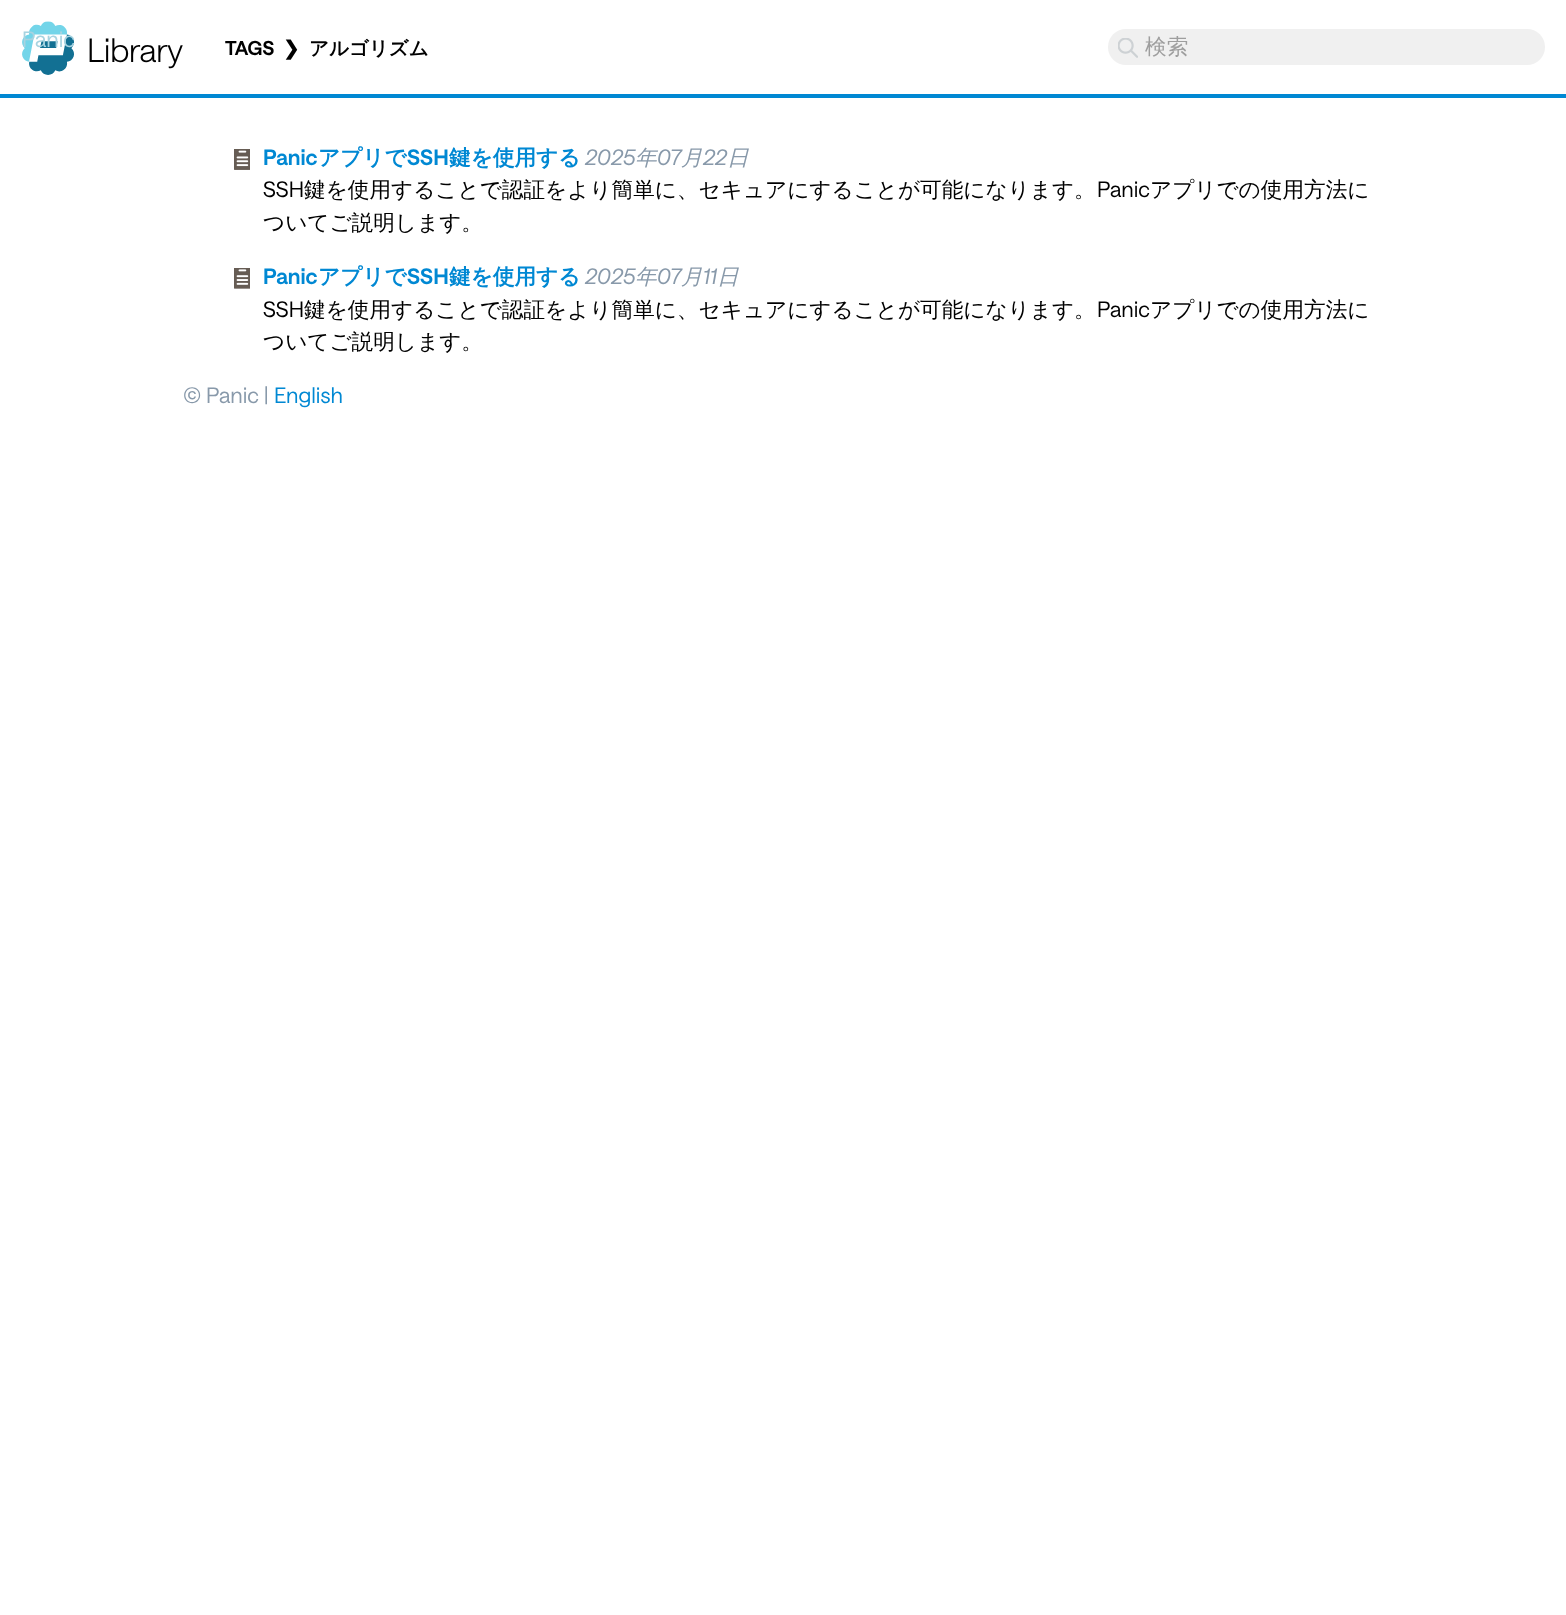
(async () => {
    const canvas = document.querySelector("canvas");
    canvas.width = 1566;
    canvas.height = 1615;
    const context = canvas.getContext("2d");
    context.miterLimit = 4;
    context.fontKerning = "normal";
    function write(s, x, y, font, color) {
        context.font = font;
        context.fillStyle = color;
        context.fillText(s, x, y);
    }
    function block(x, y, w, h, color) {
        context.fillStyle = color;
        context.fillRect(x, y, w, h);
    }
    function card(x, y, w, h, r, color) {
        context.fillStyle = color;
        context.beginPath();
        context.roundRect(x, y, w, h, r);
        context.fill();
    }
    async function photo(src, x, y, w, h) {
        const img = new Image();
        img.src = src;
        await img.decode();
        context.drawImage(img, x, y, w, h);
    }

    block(0, 0, 1566, 1615, "rgb(255, 255, 255)");
    block(0, 94, 1566, 4, "rgb(0, 136, 211)");
    await photo("media/1.png", 22, 21, 52, 54);
    write("Panic", 22, 47, "21.65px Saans", "rgb(167, 211, 224)");
    context.letterSpacing = "-0.5px";
    write("Library", 87, 62, "300 32.5px Saans", "rgb(0, 0, 0)");
    context.letterSpacing = "0px";
    write("TAGS", 225, 55, "600 19.5px Saans", "rgb(0, 0, 0)");
    write("❯", 283, 55, "bold 19.5px DejaVu Sans", "rgb(0, 0, 0)");
    write("アルゴリズム", 309, 55, "bold 19.5px WenQuanYi Zen Hei", "rgb(0, 0, 0)");
    card(1108, 29, 437, 36, 18, "rgb(240, 240, 240)");
    await photo("media/2.png", 1118, 38, 20, 20);
    write("検索", 1145, 54, "500 21.65px WenQuanYi Zen Hei", "rgb(158, 158, 158)");
    await photo("media/3.png", 234, 149, 16, 21);
    write("Panic", 263, 165, "600 21.65px Saans", "rgb(0, 136, 211)");
    write("アプリで", 318, 165, "bold 21.65px WenQuanYi Zen Hei", "rgb(0, 136, 211)");
    write("SSH", 407, 165, "600 21.65px Saans", "rgb(0, 136, 211)");
    write("鍵を使用する", 449, 165, "bold 21.65px WenQuanYi Zen Hei", "rgb(0, 136, 211)");
    write("2025", 585, 165, "italic 21.65px Saans", "rgb(136, 153, 170)");
    write("年", 635, 165, "italic 500 21.65px WenQuanYi Zen Hei", "rgb(136, 153, 170)");
    write("07", 657, 165, "italic 21.65px Saans", "rgb(136, 153, 170)");
    write("月", 681, 165, "italic 500 21.65px WenQuanYi Zen Hei", "rgb(136, 153, 170)");
    write("22", 703, 165, "italic 21.65px Saans", "rgb(136, 153, 170)");
    write("日", 727, 165, "italic 500 21.65px WenQuanYi Zen Hei", "rgb(136, 153, 170)");
    write("SSH", 263, 197, "21.65px Saans", "rgb(0, 0, 0)");
    write("鍵を使用することで認証をより簡単に、セキュアにすることが可能になります。", 304, 197, "500 21.65px WenQuanYi Zen Hei", "rgb(0, 0, 0)");
    write("Panic", 1097, 197, "21.65px Saans", "rgb(0, 0, 0)");
    write("アプリでの使用方法に", 1150, 197, "500 21.65px WenQuanYi Zen Hei", "rgb(0, 0, 0)");
    write("ついてご説明します。", 263, 230, "500 21.65px WenQuanYi Zen Hei", "rgb(0, 0, 0)");
    await photo("media/4.png", 234, 268, 16, 21);
    write("Panic", 263, 284, "600 21.65px Saans", "rgb(0, 136, 211)");
    write("アプリで", 318, 284, "bold 21.65px WenQuanYi Zen Hei", "rgb(0, 136, 211)");
    write("SSH", 407, 284, "600 21.65px Saans", "rgb(0, 136, 211)");
    write("鍵を使用する", 449, 284, "bold 21.65px WenQuanYi Zen Hei", "rgb(0, 136, 211)");
    write("2025", 585, 284, "italic 21.65px Saans", "rgb(136, 153, 170)");
    write("年", 635, 284, "italic 500 21.65px WenQuanYi Zen Hei", "rgb(136, 153, 170)");
    write("07", 657, 284, "italic 21.65px Saans", "rgb(136, 153, 170)");
    write("月", 681, 284, "italic 500 21.65px WenQuanYi Zen Hei", "rgb(136, 153, 170)");
    write("11", 703, 284, "italic 21.65px Saans", "rgb(136, 153, 170)");
    write("日", 717, 284, "italic 500 21.65px WenQuanYi Zen Hei", "rgb(136, 153, 170)");
    write("SSH", 263, 317, "21.65px Saans", "rgb(0, 0, 0)");
    write("鍵を使用することで認証をより簡単に、セキュアにすることが可能になります。", 304, 317, "500 21.65px WenQuanYi Zen Hei", "rgb(0, 0, 0)");
    write("Panic", 1097, 317, "21.65px Saans", "rgb(0, 0, 0)");
    write("アプリでの使用方法に", 1150, 317, "500 21.65px WenQuanYi Zen Hei", "rgb(0, 0, 0)");
    write("ついてご説明します。", 263, 349, "500 21.65px WenQuanYi Zen Hei", "rgb(0, 0, 0)");
    write("© Panic |", 183, 403, "21.65px Saans", "rgb(136, 153, 170)");
    write("English", 274, 403, "21.65px Saans", "rgb(0, 136, 211)");
})();
